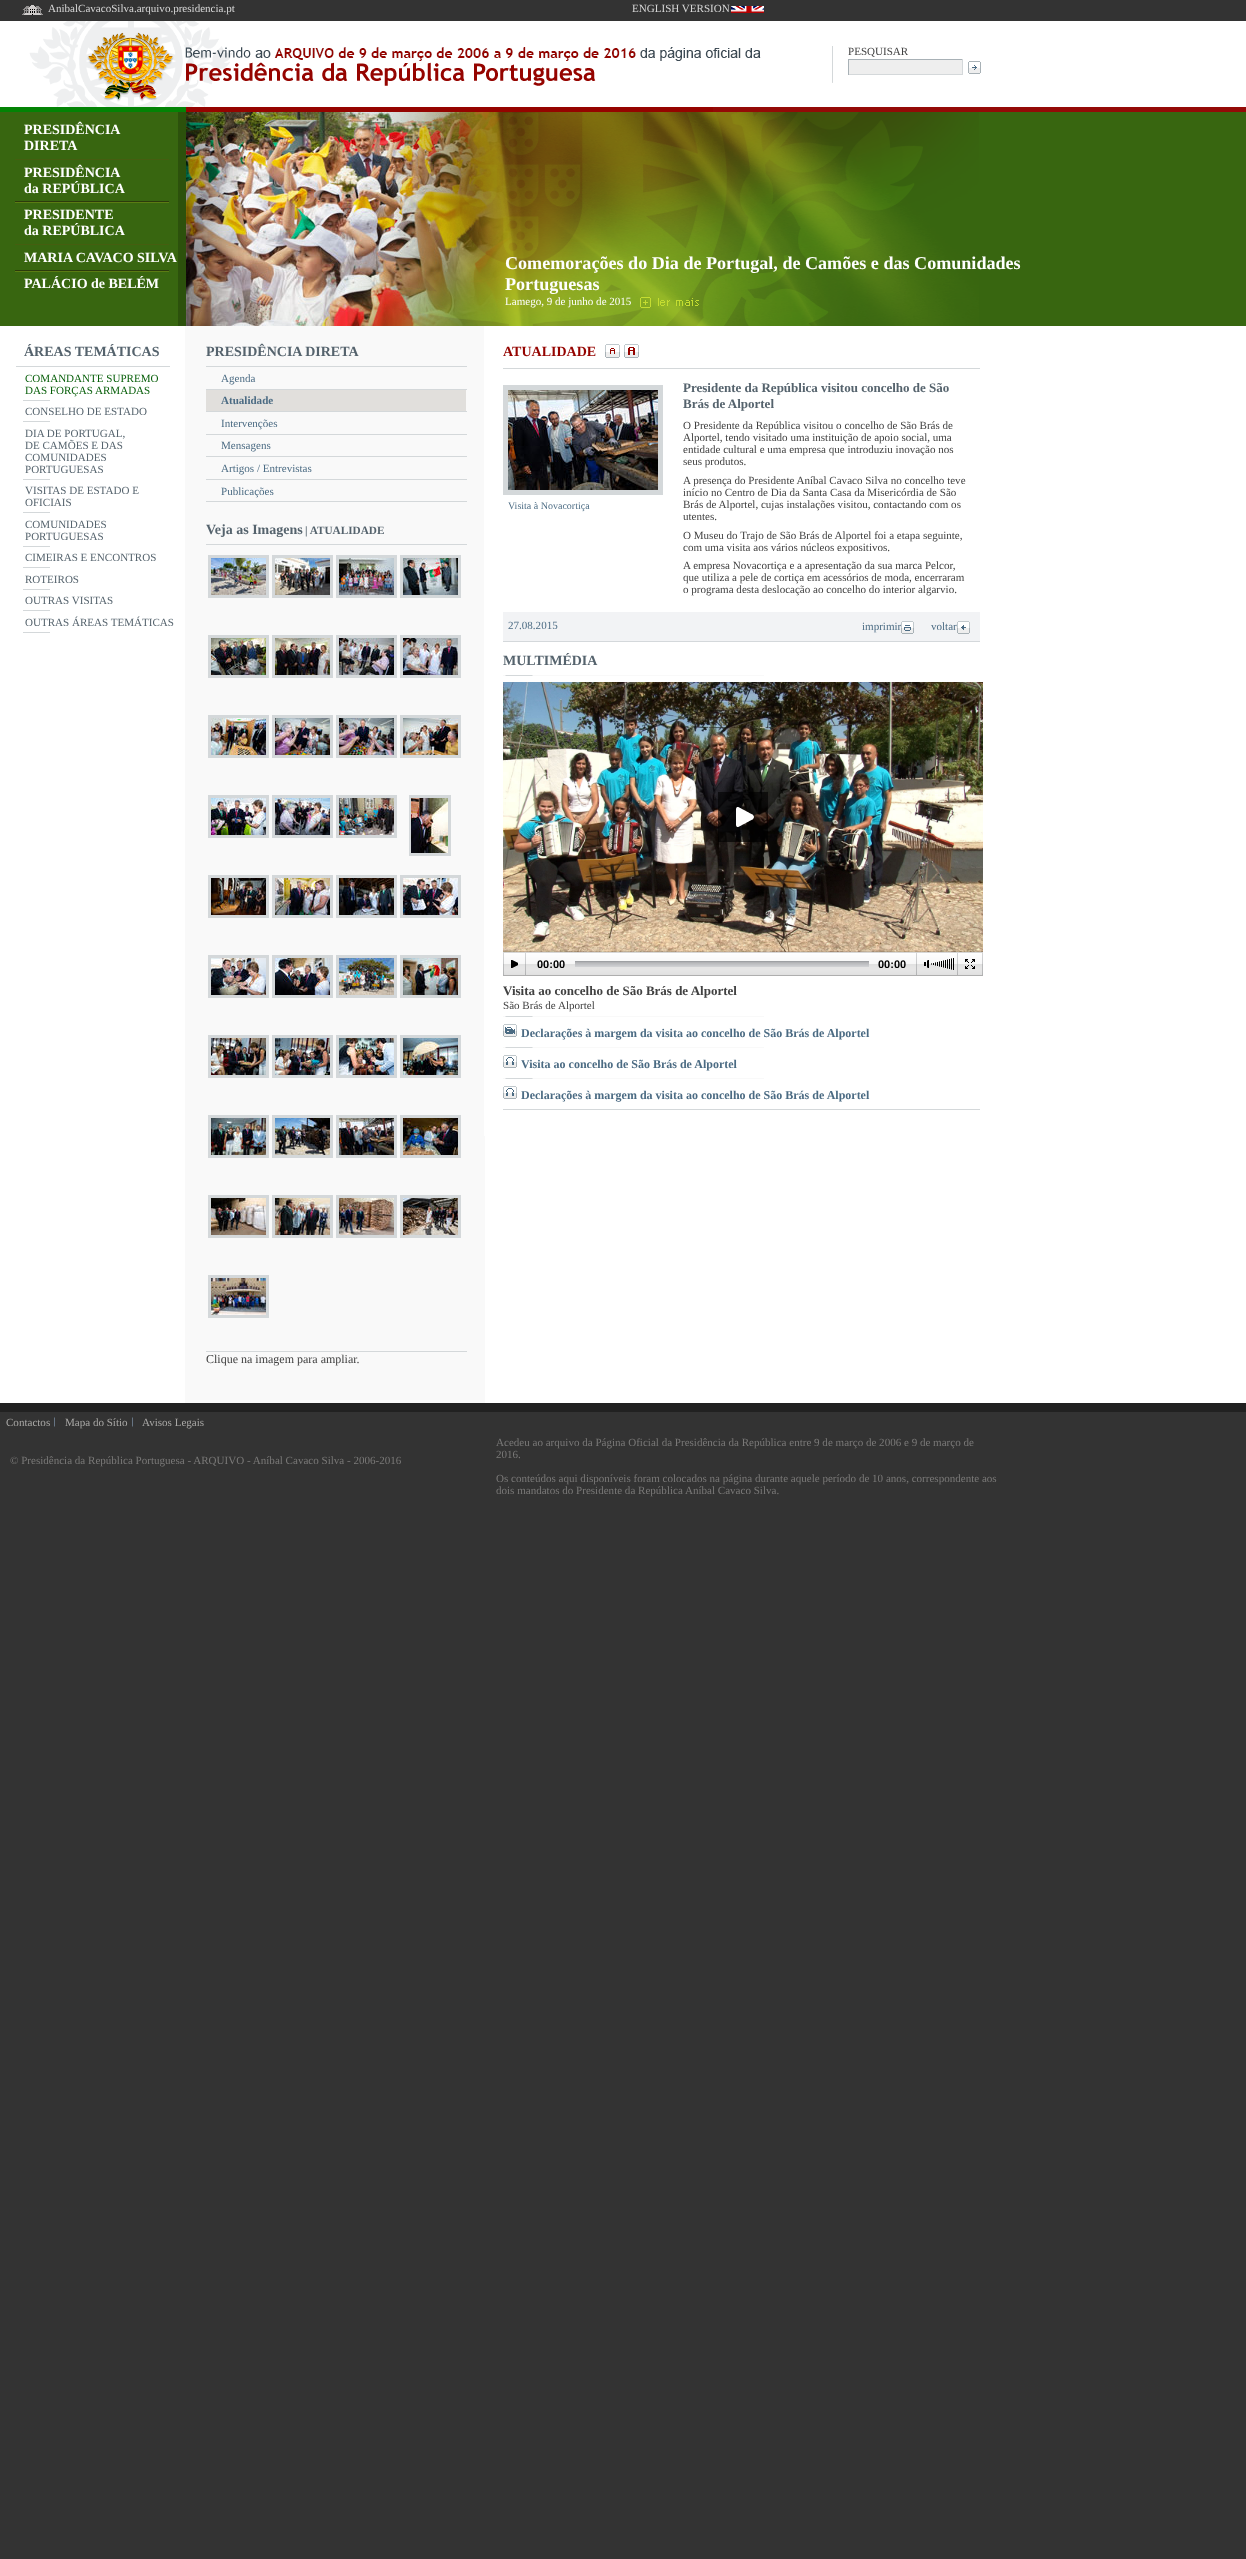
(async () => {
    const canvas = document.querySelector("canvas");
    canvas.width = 1246;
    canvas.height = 2559;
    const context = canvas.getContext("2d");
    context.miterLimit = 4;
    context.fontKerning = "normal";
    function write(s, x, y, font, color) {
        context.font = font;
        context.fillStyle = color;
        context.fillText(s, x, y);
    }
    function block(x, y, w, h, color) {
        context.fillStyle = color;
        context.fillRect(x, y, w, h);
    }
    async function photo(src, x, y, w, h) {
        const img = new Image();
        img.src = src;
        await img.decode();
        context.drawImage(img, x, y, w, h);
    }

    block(0, 0, 1246, 2559, "rgb(51, 51, 51)");
    await photo("media/1.png", 22, 5, 21, 10);
    write("AnibalCavacoSilva.arquivo.presidencia.pt", 48, 12, "11.05px Liberation Serif", "rgb(216, 216, 216)");
    write("ENGLISH VERSION", 632, 12, "11.05px Liberation Serif", "rgb(216, 216, 216)");
    await photo("media/2.png", 731, 6, 33, 7);
    await photo("media/3.png", 833, 21, 413, 91);
    await photo("media/4.png", 0, 21, 833, 91);
    write("PESQUISAR", 848, 55, "11.05px Liberation Serif", "rgb(65, 65, 65)");
    block(849, 60, 113, 14, "rgb(238, 238, 238)");
    block(848, 59, 115, 1, "rgb(168, 177, 182)");
    block(962, 59, 1, 16, "rgb(212, 216, 218)");
    block(848, 74, 115, 1, "rgb(212, 216, 218)");
    block(848, 59, 1, 16, "rgb(168, 177, 182)");
    await photo("media/5.png", 968, 61, 13, 13);
    block(0, 112, 1246, 214, "rgb(56, 102, 16)");
    block(178, 112, 8, 214, "rgb(44, 81, 12)");
    write("PRESIDÊNCIA", 24, 134, "bold 14px Liberation Serif", "rgb(255, 255, 255)");
    write("DIRETA", 24, 150, "bold 14px Liberation Serif", "rgb(255, 255, 255)");
    block(15, 159, 154, 1, "rgb(69, 94, 16)");
    write("PRESIDÊNCIA", 24, 177, "bold 14px Liberation Serif", "rgb(255, 255, 255)");
    write("da REPÚBLICA", 24, 193, "bold 14px Liberation Serif", "rgb(255, 255, 255)");
    await photo("media/6.png", 15, 201, 154, 2);
    write("PRESIDENTE", 24, 219, "bold 14px Liberation Serif", "rgb(255, 255, 255)");
    write("da REPÚBLICA", 24, 235, "bold 14px Liberation Serif", "rgb(255, 255, 255)");
    block(15, 244, 154, 1, "rgb(69, 94, 16)");
    write("MARIA CAVACO SILVA", 24, 262, "bold 14px Liberation Serif", "rgb(255, 255, 255)");
    await photo("media/6.png", 15, 270, 154, 2);
    write("PALÁCIO de BELÉM", 24, 288, "bold 14px Liberation Serif", "rgb(255, 255, 255)");
    await photo("media/7.png", 186, 112, 335, 214);
    await photo("media/8.png", 186, 112, 793, 214);
    write("Comemorações do Dia de Portugal, de Camões e das Comunidades", 505, 269, "bold 18.1px Liberation Serif", "rgb(255, 255, 255)");
    write("Portuguesas", 505, 290, "bold 18.1px Liberation Serif", "rgb(255, 255, 255)");
    write("Lamego, 9 de junho de 2015", 505, 305, "11.05px Liberation Serif", "rgb(255, 255, 255)");
    await photo("media/9.png", 640, 297, 59, 11);
    block(0, 326, 1246, 1077, "rgb(255, 255, 255)");
    block(185, 326, 300, 1077, "rgb(249, 249, 249)");
    write("ÁREAS TEMÁTICAS", 24, 356, "bold 14px Liberation Serif", "rgb(85, 99, 109)");
    block(16, 366, 154, 1, "rgb(212, 216, 218)");
    write("COMANDANTE SUPREMO", 25, 382, "11.05px Liberation Serif", "rgb(5, 93, 7)");
    write("DAS FORÇAS ARMADAS", 25, 394, "11.05px Liberation Serif", "rgb(5, 93, 7)");
    block(23, 400, 27, 1, "rgb(212, 216, 218)");
    write("CONSELHO DE ESTADO", 25, 415, "11.05px Liberation Serif", "rgb(85, 99, 109)");
    block(23, 421, 27, 1, "rgb(212, 216, 218)");
    write("DIA DE PORTUGAL,", 25, 437, "11.05px Liberation Serif", "rgb(85, 99, 109)");
    write("DE CAMÕES E DAS", 25, 449, "11.05px Liberation Serif", "rgb(85, 99, 109)");
    write("COMUNIDADES", 25, 461, "11.05px Liberation Serif", "rgb(85, 99, 109)");
    write("PORTUGUESAS", 25, 473, "11.05px Liberation Serif", "rgb(85, 99, 109)");
    block(23, 479, 27, 1, "rgb(212, 216, 218)");
    write("VISITAS DE ESTADO E", 25, 494, "11.05px Liberation Serif", "rgb(85, 99, 109)");
    write("OFICIAIS", 25, 506, "11.05px Liberation Serif", "rgb(85, 99, 109)");
    block(23, 512, 27, 1, "rgb(212, 216, 218)");
    write("COMUNIDADES", 25, 528, "11.05px Liberation Serif", "rgb(85, 99, 109)");
    write("PORTUGUESAS", 25, 540, "11.05px Liberation Serif", "rgb(85, 99, 109)");
    block(23, 546, 27, 1, "rgb(212, 216, 218)");
    write("CIMEIRAS E ENCONTROS", 25, 561, "11.05px Liberation Serif", "rgb(85, 99, 109)");
    block(23, 567, 27, 1, "rgb(212, 216, 218)");
    write("ROTEIROS", 25, 583, "11.05px Liberation Serif", "rgb(85, 99, 109)");
    block(23, 589, 27, 1, "rgb(212, 216, 218)");
    write("OUTRAS VISITAS", 25, 604, "11.05px Liberation Serif", "rgb(85, 99, 109)");
    block(23, 610, 27, 1, "rgb(212, 216, 218)");
    write("OUTRAS ÁREAS TEMÁTICAS", 25, 626, "11.05px Liberation Serif", "rgb(85, 99, 109)");
    block(23, 632, 27, 1, "rgb(212, 216, 218)");
    write("PRESIDÊNCIA DIRETA", 206, 356, "bold 14px Liberation Serif", "rgb(85, 99, 109)");
    block(206, 366, 261, 1, "rgb(212, 216, 218)");
    write("Agenda", 221, 382, "11.05px Liberation Serif", "rgb(75, 107, 131)");
    block(206, 389, 261, 1, "rgb(212, 216, 218)");
    block(206, 390, 260, 21, "rgb(225, 223, 220)");
    write("Atualidade", 221, 404, "bold 11.05px Liberation Serif", "rgb(75, 107, 131)");
    block(206, 411, 261, 1, "rgb(212, 216, 218)");
    write("Intervenções", 221, 427, "11.05px Liberation Serif", "rgb(75, 107, 131)");
    block(206, 434, 261, 1, "rgb(212, 216, 218)");
    write("Mensagens", 221, 449, "11.05px Liberation Serif", "rgb(75, 107, 131)");
    block(206, 456, 261, 1, "rgb(212, 216, 218)");
    write("Artigos / Entrevistas", 221, 472, "11.05px Liberation Serif", "rgb(75, 107, 131)");
    block(206, 479, 261, 1, "rgb(212, 216, 218)");
    write("Publicações", 221, 495, "11.05px Liberation Serif", "rgb(75, 107, 131)");
    block(206, 501, 261, 1, "rgb(212, 216, 218)");
    write("Veja as Imagens", 206, 534, "bold 14px Liberation Serif", "rgb(85, 99, 109)");
    write("| ATUALIDADE", 305, 534, "bold 11.25px Liberation Serif", "rgb(85, 99, 109)");
    block(206, 544, 261, 1, "rgb(212, 216, 218)");
    await photo("media/10.png", 208, 555, 61, 43);
    await photo("media/11.png", 272, 555, 61, 43);
    await photo("media/12.png", 336, 555, 61, 43);
    await photo("media/13.png", 400, 555, 61, 43);
    await photo("media/14.png", 208, 635, 61, 43);
    await photo("media/15.png", 272, 635, 61, 43);
    await photo("media/16.png", 336, 635, 61, 43);
    await photo("media/17.png", 400, 635, 61, 43);
    await photo("media/18.png", 208, 715, 61, 43);
    await photo("media/19.png", 272, 715, 61, 43);
    await photo("media/20.png", 336, 715, 61, 43);
    await photo("media/21.png", 400, 715, 61, 43);
    await photo("media/22.png", 208, 795, 61, 43);
    await photo("media/23.png", 272, 795, 61, 43);
    await photo("media/24.png", 336, 795, 61, 43);
    await photo("media/25.png", 409, 795, 42, 61);
    await photo("media/26.png", 208, 875, 61, 43);
    await photo("media/27.png", 272, 875, 61, 43);
    await photo("media/28.png", 336, 875, 61, 43);
    await photo("media/29.png", 400, 875, 61, 43);
    await photo("media/30.png", 208, 955, 61, 43);
    await photo("media/31.png", 272, 955, 61, 43);
    await photo("media/32.png", 336, 955, 61, 43);
    await photo("media/33.png", 400, 955, 61, 43);
    await photo("media/34.png", 208, 1035, 61, 43);
    await photo("media/35.png", 272, 1035, 61, 43);
    await photo("media/36.png", 336, 1035, 61, 43);
    await photo("media/37.png", 400, 1035, 61, 43);
    await photo("media/38.png", 208, 1115, 61, 43);
    await photo("media/39.png", 272, 1115, 61, 43);
    await photo("media/40.png", 336, 1115, 61, 43);
    await photo("media/41.png", 400, 1115, 61, 43);
    await photo("media/42.png", 208, 1195, 61, 43);
    await photo("media/43.png", 272, 1195, 61, 43);
    await photo("media/44.png", 336, 1195, 61, 43);
    await photo("media/45.png", 400, 1195, 61, 43);
    await photo("media/46.png", 208, 1275, 61, 43);
    block(206, 1351, 261, 1, "rgb(212, 216, 218)");
    write("Clique na imagem para ampliar.", 206, 1363, "12px Liberation Serif", "rgb(65, 65, 65)");
    block(484, 326, 1, 810, "rgb(255, 255, 255)");
    write("ATUALIDADE", 503, 356, "bold 14px Liberation Serif", "rgb(149, 4, 0)");
    await photo("media/47.png", 605, 344, 15, 14);
    await photo("media/48.png", 624, 344, 15, 14);
    block(503, 368, 477, 1, "rgb(212, 216, 218)");
    await photo("media/49.png", 503, 385, 160, 110);
    write("Visita à Novacortiça", 508, 509, "10px Liberation Serif", "rgb(75, 107, 131)");
    write("Presidente da República visitou concelho de São", 683, 392, "bold 13px Liberation Serif", "rgb(85, 99, 109)");
    write("Brás de Alportel", 683, 408, "bold 13px Liberation Serif", "rgb(85, 99, 109)");
    write("O Presidente da República visitou o concelho de São Brás de", 683, 429, "11.05px Liberation Serif", "rgb(65, 65, 65)");
    write("Alportel, tendo visitado uma instituição de apoio social, uma", 683, 441, "11.05px Liberation Serif", "rgb(65, 65, 65)");
    write("entidade cultural e uma empresa que introduziu inovação nos", 683, 453, "11.05px Liberation Serif", "rgb(65, 65, 65)");
    write("seus produtos.", 683, 465, "11.05px Liberation Serif", "rgb(65, 65, 65)");
    write("A presença do Presidente Aníbal Cavaco Silva no concelho teve", 683, 484, "11.05px Liberation Serif", "rgb(65, 65, 65)");
    write("início no Centro de Dia da Santa Casa da Misericórdia de São", 683, 496, "11.05px Liberation Serif", "rgb(65, 65, 65)");
    write("Brás de Alportel, cujas instalações visitou, contactando com os", 683, 508, "11.05px Liberation Serif", "rgb(65, 65, 65)");
    write("utentes.", 683, 520, "11.05px Liberation Serif", "rgb(65, 65, 65)");
    write("O Museu do Trajo de São Brás de Alportel foi a etapa seguinte,", 683, 539, "11.05px Liberation Serif", "rgb(65, 65, 65)");
    write("com uma visita aos vários núcleos expositivos.", 683, 551, "11.05px Liberation Serif", "rgb(65, 65, 65)");
    write("A empresa Novacortiça e a apresentação da sua marca Pelcor,", 683, 569, "11.05px Liberation Serif", "rgb(65, 65, 65)");
    write("que utiliza a pele de cortiça em acessórios de moda, encerraram", 683, 581, "11.05px Liberation Serif", "rgb(65, 65, 65)");
    write("o programa desta deslocação ao concelho do interior algarvio.", 683, 593, "11.05px Liberation Serif", "rgb(65, 65, 65)");
    block(503, 612, 477, 29, "rgb(242, 243, 245)");
    block(503, 641, 477, 1, "rgb(212, 216, 219)");
    write("27.08.2015", 508, 629, "11.05px Liberation Serif", "rgb(75, 107, 131)");
    write("imprimir", 862, 630, "11.05px Liberation Serif", "rgb(75, 107, 131)");
    await photo("media/50.png", 901, 621, 13, 13);
    write("voltar", 931, 630, "11.05px Liberation Serif", "rgb(75, 107, 131)");
    await photo("media/51.png", 957, 621, 13, 13);
    write("MULTIMÉDIA", 503, 665, "bold 14px Liberation Serif", "rgb(85, 99, 109)");
    await photo("media/52.png", 503, 675, 261, 1);
    await photo("media/53.png", 503, 682, 480, 270);
    await photo("media/54.png", 718, 792, 50, 50);
    await photo("media/55.png", 736, 807, 18, 20);
    await photo("media/56.png", 503, 952, 1, 24);
    await photo("media/57.png", 504, 952, 478, 24);
    await photo("media/56.png", 982, 952, 1, 24);
    await photo("media/58.png", 511, 960, 7, 8);
    await photo("media/59.png", 525, 953, 1, 22);
    write("00:00", 537, 968, "bold 11px Liberation Sans", "rgb(0, 0, 0)");
    await photo("media/60.png", 575, 961, 294, 6);
    write("00:00", 878, 968, "bold 11px Liberation Sans", "rgb(0, 0, 0)");
    await photo("media/59.png", 916, 953, 1, 22);
    await photo("media/61.png", 924, 960, 5, 8);
    await photo("media/62.png", 931, 958, 21, 12);
    await photo("media/63.png", 931, 958, 23, 12);
    await photo("media/59.png", 957, 953, 1, 22);
    await photo("media/64.png", 965, 959, 10, 10);
    write("Visita ao concelho de São Brás de Alportel", 503, 995, "bold 13px Liberation Serif", "rgb(65, 65, 65)");
    write("São Brás de Alportel", 503, 1009, "11.05px Liberation Serif", "rgb(65, 65, 65)");
    await photo("media/52.png", 503, 1016, 261, 1);
    await photo("media/65.png", 503, 1024, 14, 13);
    write("Declarações à margem da visita ao concelho de São Brás de Alportel", 521, 1037, "bold 12px Liberation Serif", "rgb(75, 107, 131)");
    await photo("media/52.png", 503, 1047, 261, 1);
    await photo("media/66.png", 503, 1055, 14, 13);
    write("Visita ao concelho de São Brás de Alportel", 521, 1068, "bold 12px Liberation Serif", "rgb(75, 107, 131)");
    await photo("media/52.png", 503, 1078, 261, 1);
    await photo("media/66.png", 503, 1086, 14, 13);
    write("Declarações à margem da visita ao concelho de São Brás de Alportel", 521, 1099, "bold 12px Liberation Serif", "rgb(75, 107, 131)");
    block(503, 1109, 477, 1, "rgb(212, 216, 218)");
    block(0, 1403, 1246, 9, "rgb(33, 33, 33)");
    write("Contactos", 6, 1426, "11.05px Liberation Serif", "rgb(169, 168, 166)");
    await photo("media/67.png", 54, 1417, 1, 10);
    write("Mapa do Sítio", 65, 1426, "11.05px Liberation Serif", "rgb(169, 168, 166)");
    await photo("media/67.png", 132, 1417, 1, 10);
    write("Avisos Legais", 142, 1426, "11.05px Liberation Serif", "rgb(169, 168, 166)");
    write("© Presidência da República Portuguesa - ARQUIVO - Aníbal Cavaco Silva - 2006-2016", 10, 1464, "11.05px Liberation Serif", "rgb(122, 121, 120)");
    write("Acedeu ao arquivo da Página Oficial da Presidência da República entre 9 de março de 2006 e 9 de março de", 496, 1446, "11.05px Liberation Serif", "rgb(122, 121, 120)");
    write("2016.", 496, 1458, "11.05px Liberation Serif", "rgb(122, 121, 120)");
    write("Os conteúdos aqui disponíveis foram colocados na página durante aquele período de 10 anos, correspondente aos", 496, 1482, "11.05px Liberation Serif", "rgb(122, 121, 120)");
    write("dois mandatos do Presidente da República Aníbal Cavaco Silva.", 496, 1494, "11.05px Liberation Serif", "rgb(122, 121, 120)");
})();
